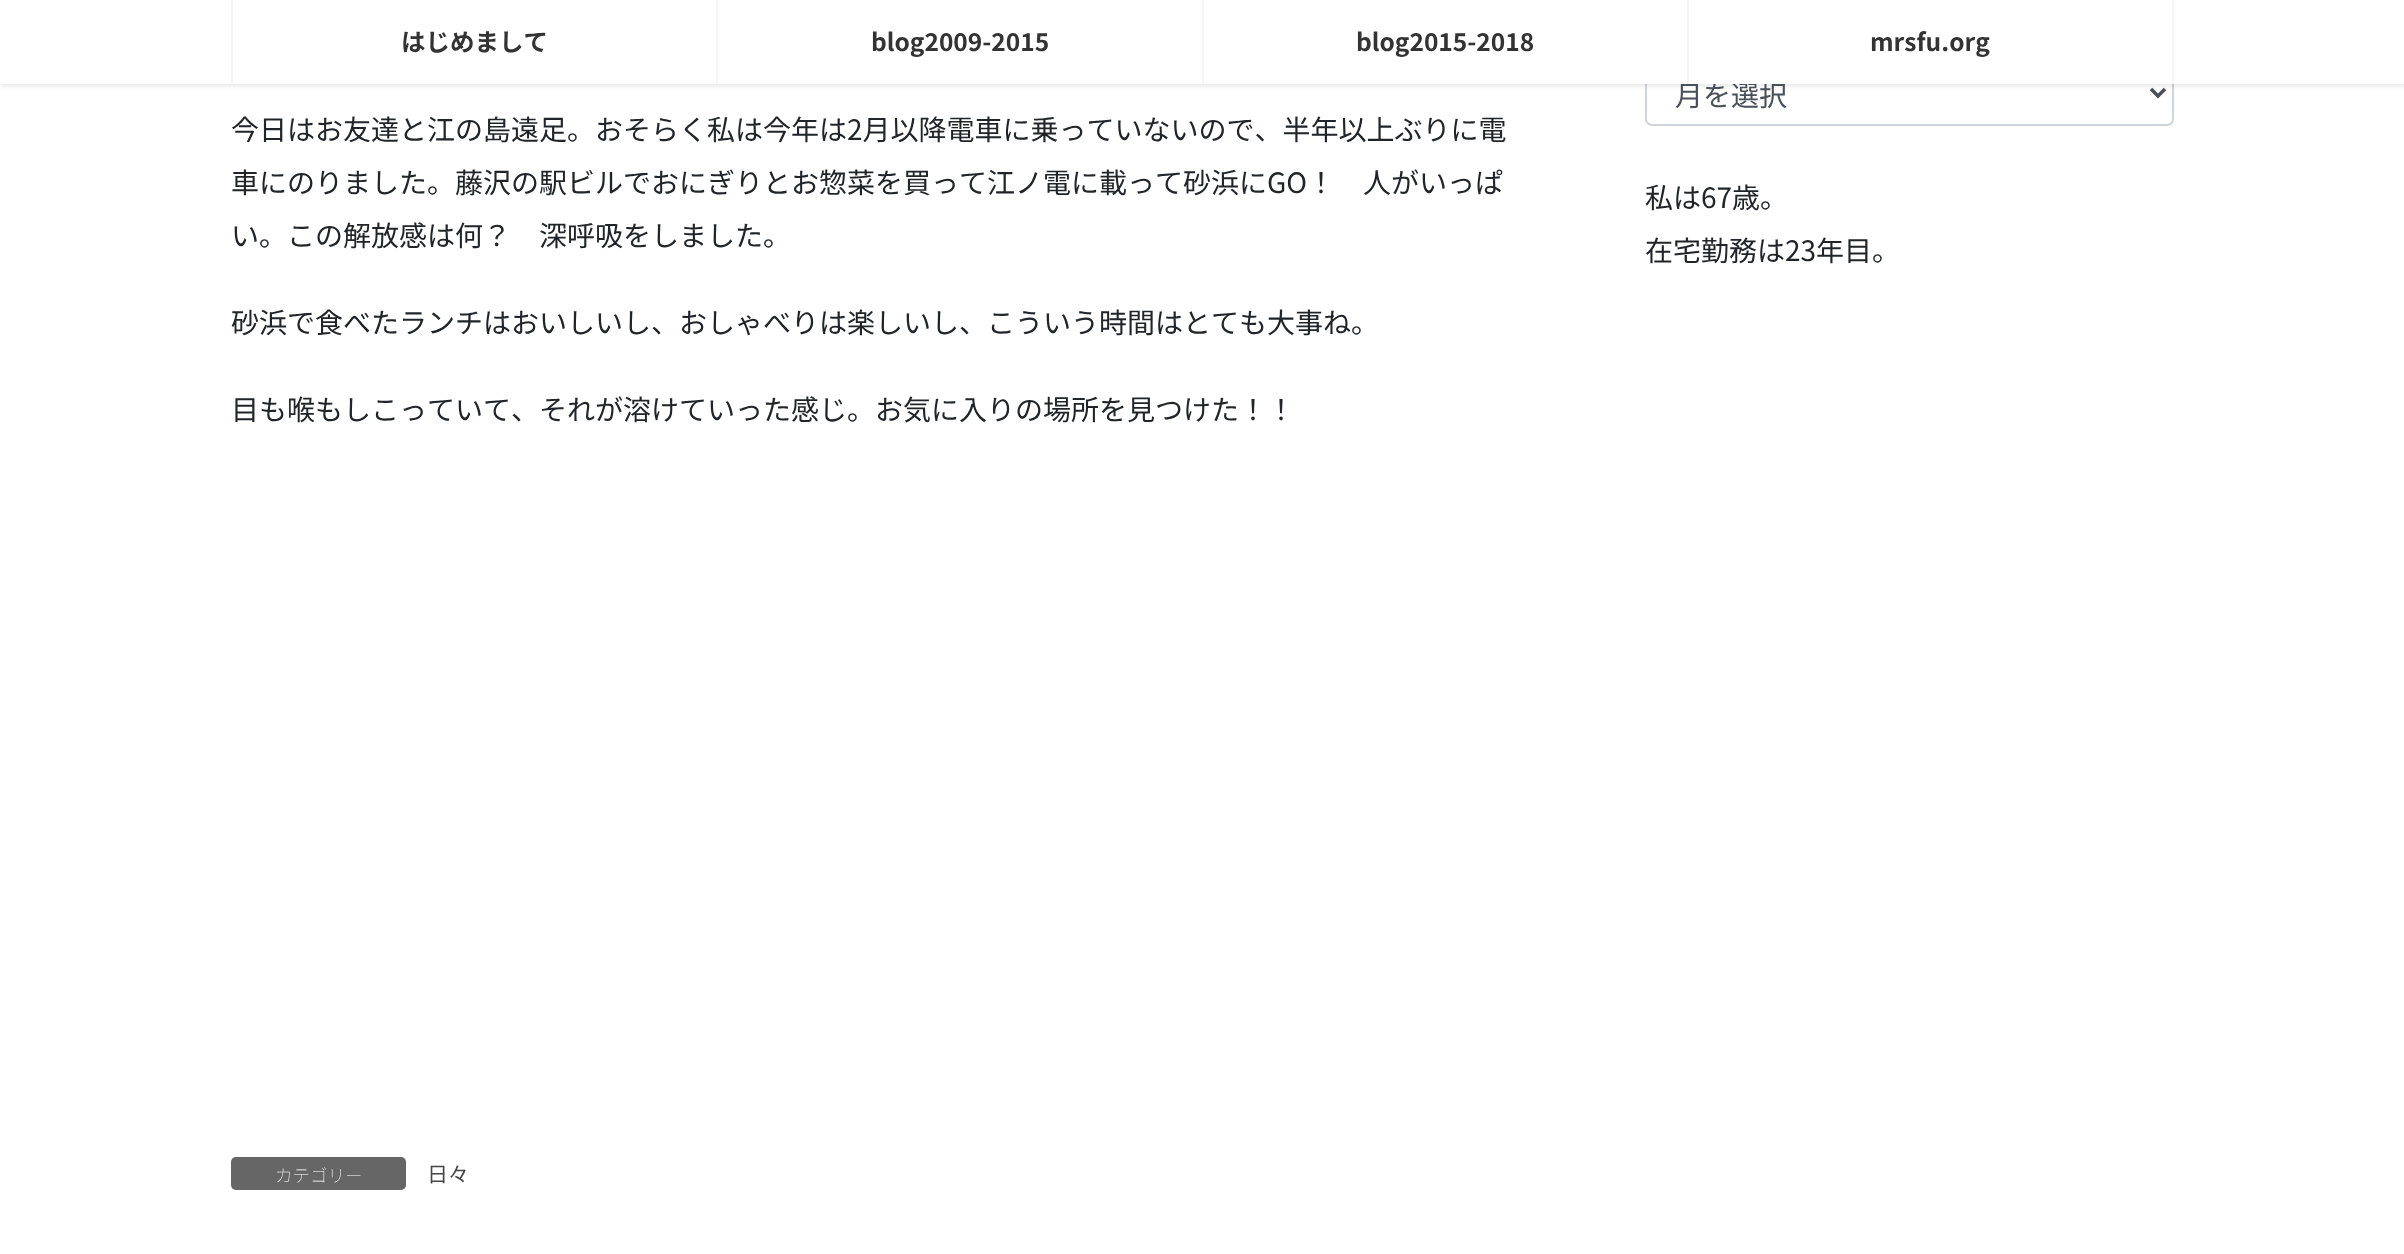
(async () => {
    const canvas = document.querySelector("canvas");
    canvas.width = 2404;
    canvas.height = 1254;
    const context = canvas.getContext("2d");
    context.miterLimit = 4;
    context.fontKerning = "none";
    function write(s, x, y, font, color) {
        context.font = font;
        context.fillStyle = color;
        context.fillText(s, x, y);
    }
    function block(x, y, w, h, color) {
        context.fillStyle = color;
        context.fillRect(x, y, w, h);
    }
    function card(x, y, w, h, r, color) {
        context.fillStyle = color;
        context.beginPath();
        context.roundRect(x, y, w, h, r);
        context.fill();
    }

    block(0, 0, 2404, 1254, "rgb(255, 255, 255)");
    context.beginPath();
    context.roundRect(1646, 61, 527, 64, 6);
    context.strokeStyle = "rgb(206, 212, 218)";
    context.lineWidth = 2;
    context.stroke();
    context.beginPath();
    context.moveTo(2151, 89);
    context.lineTo(2158, 96);
    context.lineTo(2165, 89);
    context.strokeStyle = "rgb(73, 80, 87)";
    context.lineWidth = 3.5;
    context.stroke();
    context.fillStyle = "rgba(0, 0, 0, 0.1)";
    context.filter = "blur(2.5px)";
    context.beginPath();
    context.rect(0, 2, 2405, 84);
    context.fill();
    context.filter = "none";
    write("月を選択", 1675, 106, "28px Noto Sans JP", "rgb(73, 80, 87)");
    block(0, 0, 2404, 84, "rgb(255, 255, 255)");
    block(231, 0, 2, 84, "rgb(245, 245, 245)");
    write("はじめまして", 401, 51, "bold 24.5px Noto Sans JP", "rgb(51, 51, 51)");
    block(716, 0, 2, 84, "rgb(245, 245, 245)");
    write("blog2009-2015", 871, 51, "bold 24.5px Noto Sans JP", "rgb(51, 51, 51)");
    block(1202, 0, 2, 84, "rgb(245, 245, 245)");
    write("blog2015-2018", 1356, 51, "bold 24.5px Noto Sans JP", "rgb(51, 51, 51)");
    block(2172, 0, 2, 84, "rgb(245, 245, 245)");
    block(1687, 0, 2, 84, "rgb(245, 245, 245)");
    write("mrsfu.org", 1870, 51, "bold 24.5px Noto Sans JP", "rgb(51, 51, 51)");
    write("今日はお友達と江の島遠足。おそらく私は今年は2月以降電車に乗っていないので、半年以上ぶりに電", 231, 140, "28px Noto Sans JP", "rgb(33, 37, 41)");
    write("車にのりました。藤沢の駅ビルでおにぎりとお惣菜を買って江ノ電に載って砂浜にGO！　人がいっぱ", 231, 193, "28px Noto Sans JP", "rgb(33, 37, 41)");
    write("い。この解放感は何？　深呼吸をしました。", 231, 246, "28px Noto Sans JP", "rgb(33, 37, 41)");
    write("砂浜で食べたランチはおいしいし、おしゃべりは楽しいし、こういう時間はとても大事ね。", 231, 333, "28px Noto Sans JP", "rgb(33, 37, 41)");
    write("目も喉もしこっていて", 231, 420, "28px Noto Sans JP", "rgb(33, 37, 41)");
    write("、それが溶けていった感じ。お気に入りの場所を見つけた！！", 511, 420, "28px Noto Sans JP", "rgb(33, 37, 41)");
    card(231, 1157, 175, 33, 5, "rgb(102, 102, 102)");
    write("カテゴリー", 275, 1182, "100 17.5px Noto Sans JP", "rgb(255, 255, 255)");
    write("日々", 427, 1182, "21px Noto Sans JP", "rgb(70, 70, 70)");
    write("私は67歳。", 1645, 208, "28px Noto Sans JP", "rgb(33, 37, 41)");
    write("在宅勤務は23年目。", 1645, 261, "28px Noto Sans JP", "rgb(33, 37, 41)");
})();
